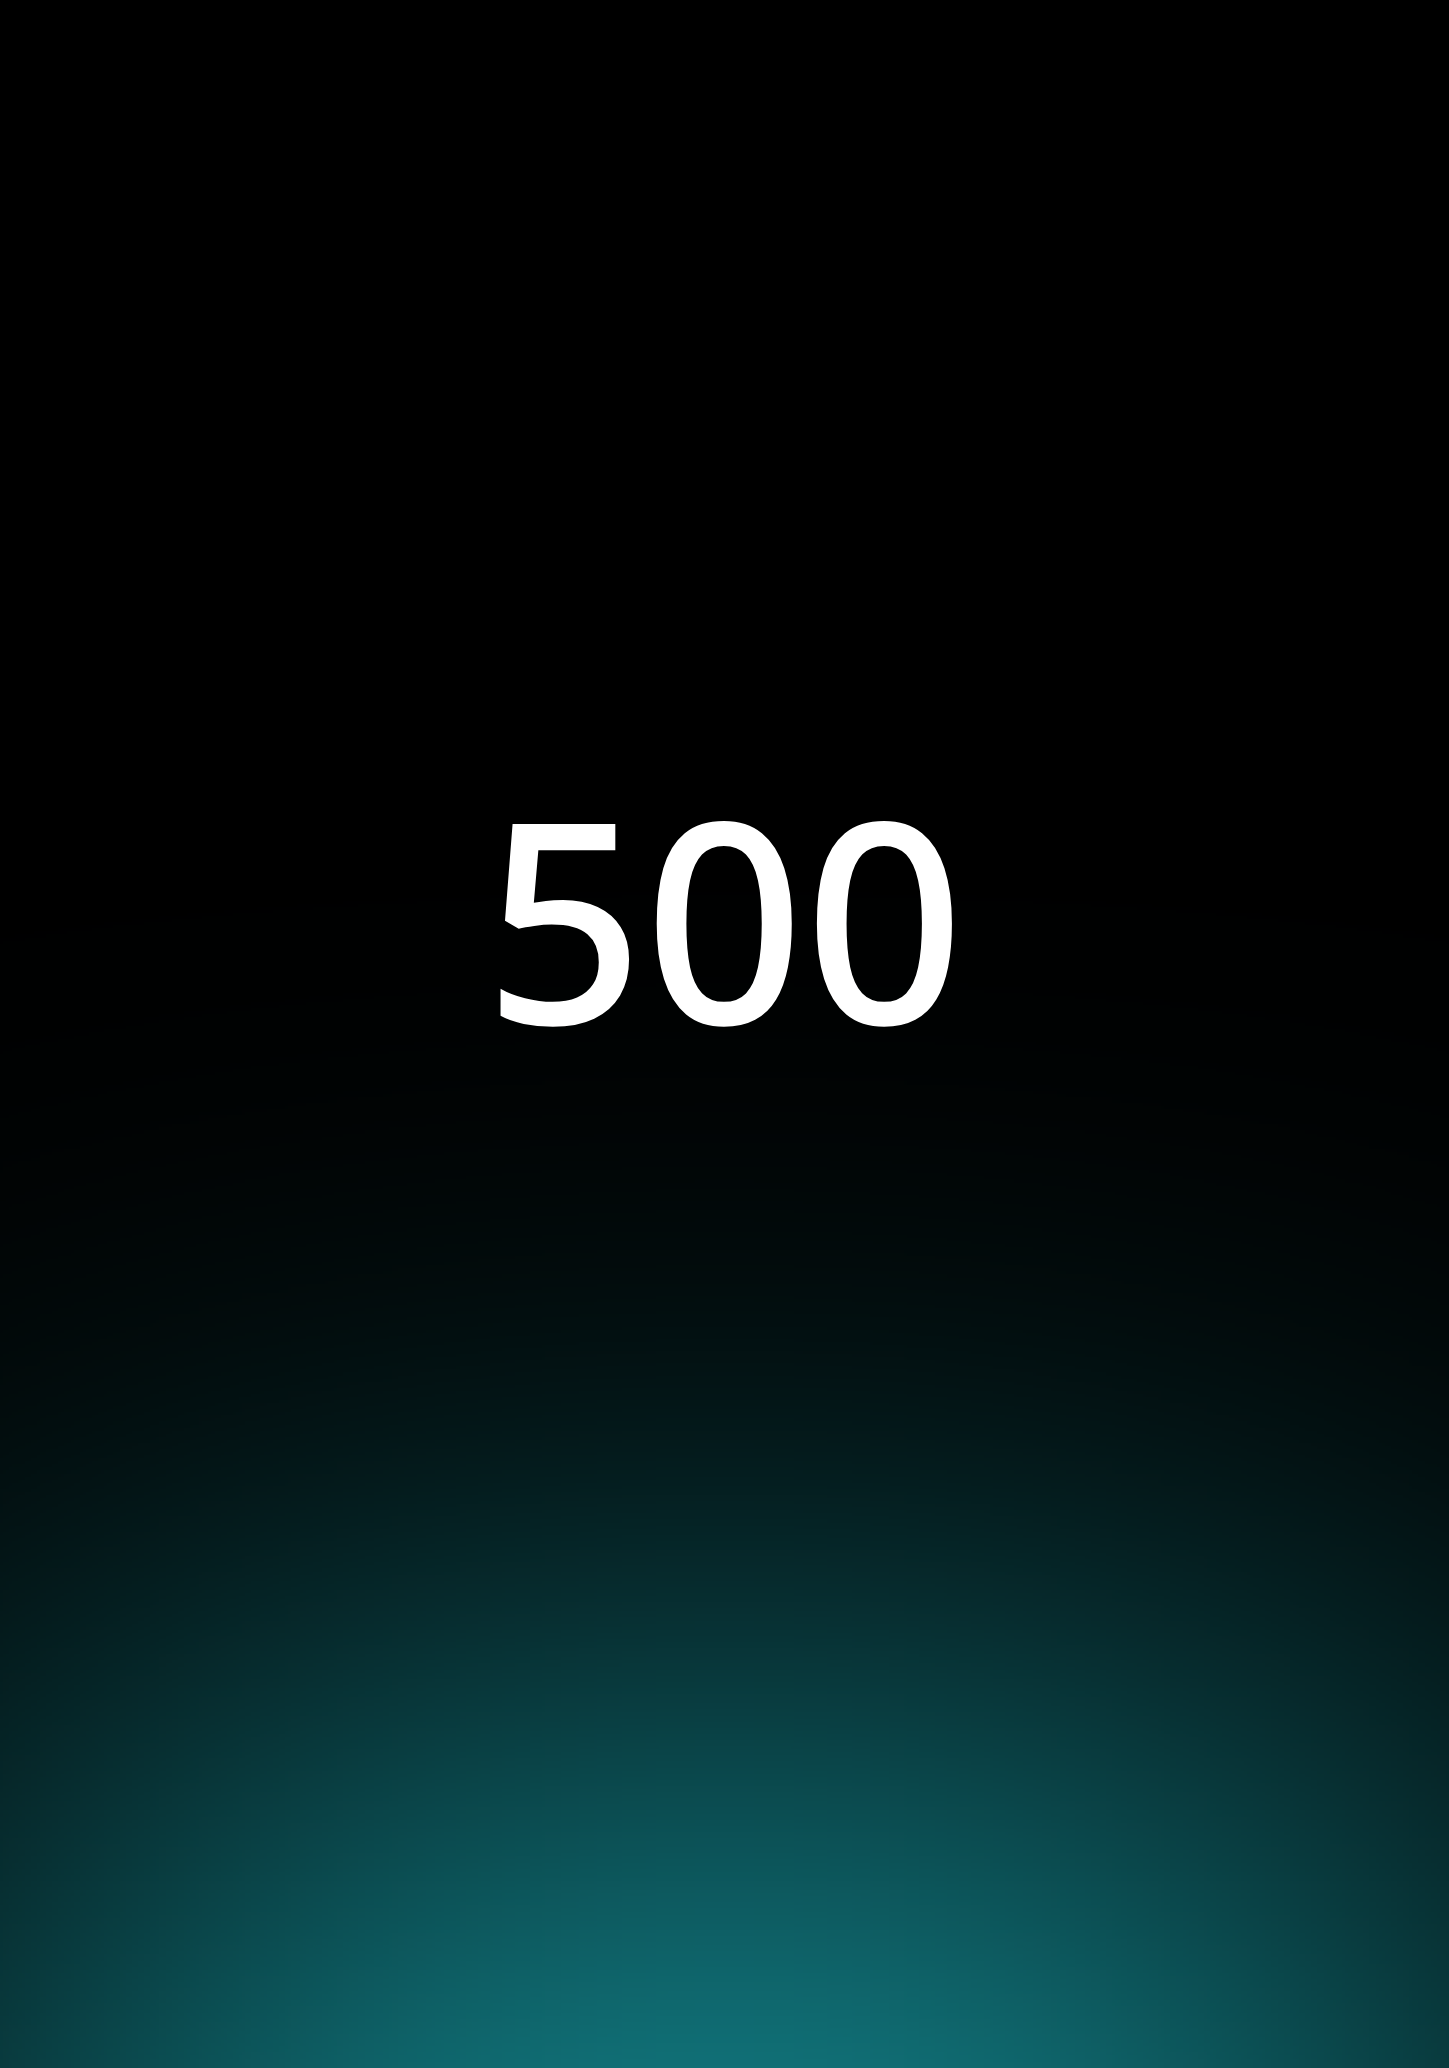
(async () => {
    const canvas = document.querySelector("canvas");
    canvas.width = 1449;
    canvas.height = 2068;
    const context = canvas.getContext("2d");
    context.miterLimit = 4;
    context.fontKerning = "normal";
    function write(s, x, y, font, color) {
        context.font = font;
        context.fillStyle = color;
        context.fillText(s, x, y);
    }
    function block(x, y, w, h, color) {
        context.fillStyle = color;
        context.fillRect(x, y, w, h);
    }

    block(0, 0, 1449, 2068, "rgb(0, 0, 0)");
    context.fillStyle = "rgb(27, 187, 198)";
    context.filter = "blur(413.5px)";
    context.beginPath();
    context.rect(0, 1862, 1449, 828);
    context.fill();
    context.filter = "none";
    write("500", 484, 1024, "500 280px Noto Sans", "rgb(255, 255, 255)");
})();
